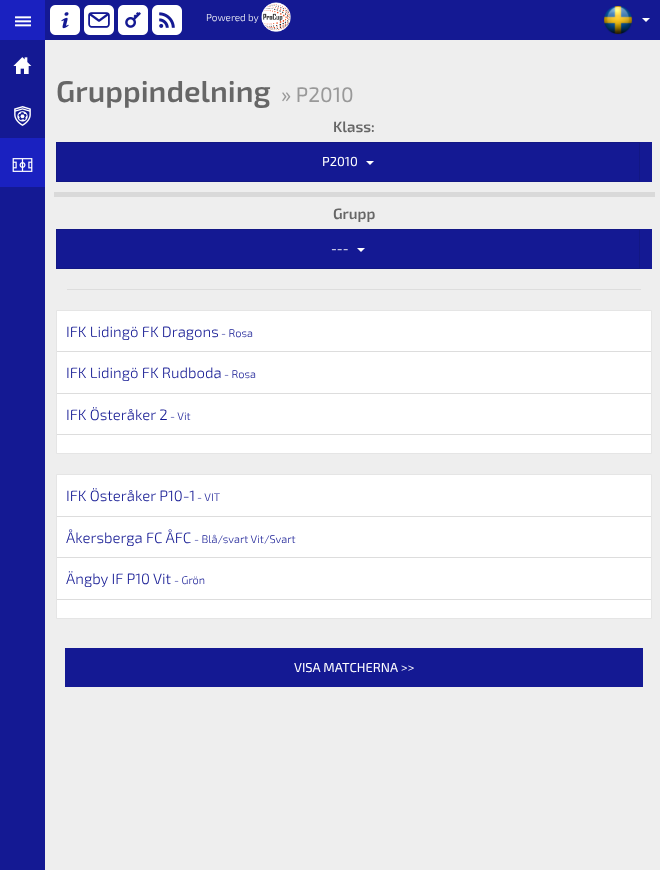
(async () => {
    const canvas = document.querySelector("canvas");
    canvas.width = 660;
    canvas.height = 870;
    const context = canvas.getContext("2d");
    context.miterLimit = 4;
    context.fontKerning = "normal";
    function write(s, x, y, font, color) {
        context.font = font;
        context.fillStyle = color;
        context.fillText(s, x, y);
    }
    function block(x, y, w, h, color) {
        context.fillStyle = color;
        context.fillRect(x, y, w, h);
    }
    async function photo(src, x, y, w, h) {
        const img = new Image();
        img.src = src;
        await img.decode();
        context.drawImage(img, x, y, w, h);
    }

    block(0, 0, 660, 870, "rgb(238, 238, 238)");
    block(45, 0, 615, 40, "rgb(20, 25, 147)");
    block(0, 0, 45, 40, "rgb(26, 33, 192)");
    await photo("media/1.png", 15, 16, 16, 11);
    await photo("media/2.png", 50, 5, 30, 30);
    await photo("media/3.png", 84, 5, 30, 30);
    await photo("media/4.png", 118, 5, 30, 30);
    await photo("media/5.png", 152, 5, 30, 30);
    write("Powered by", 206, 21, "300 10px 'Exo 2'", "rgb(255, 255, 255)");
    await photo("media/6.png", 261, 2, 30, 30);
    await photo("media/7.png", 604, 6, 29, 29);
    context.beginPath();
    context.moveTo(642, 18);
    context.lineTo(650, 18);
    context.lineTo(646, 22);
    context.closePath();
    context.fill();
    block(0, 40, 45, 830, "rgb(20, 25, 147)");
    await photo("media/8.png", 13, 57, 19, 17);
    await photo("media/9.png", 14, 106, 17, 20);
    block(0, 138, 45, 49, "rgb(26, 33, 192)");
    await photo("media/10.png", 12, 158, 21, 14);
    write("Gruppindelning", 56, 102, "600 30px 'Exo 2'", "rgb(102, 102, 102)");
    write("» P2010", 281, 102, "21px 'Exo 2'", "rgb(153, 153, 153)");
    write("Klass:", 333, 132, "600 15px 'Exo 2'", "rgb(102, 102, 102)");
    block(54, 192, 601, 5, "rgb(217, 217, 217)");
    block(57, 142, 595, 40, "rgb(20, 25, 147)");
    context.strokeStyle = "rgb(18, 23, 132)";
    context.strokeRect(56.5, 142.5, 583, 39);
    write("P2010", 322, 166, "13px 'Exo 2'", "rgb(255, 255, 255)");
    context.beginPath();
    context.moveTo(366, 161);
    context.lineTo(374, 161);
    context.lineTo(370, 165);
    context.closePath();
    context.fill();
    write("Grupp", 333, 219, "600 15px 'Exo 2'", "rgb(102, 102, 102)");
    block(57, 229, 595, 40, "rgb(20, 25, 147)");
    context.strokeRect(56.5, 229.5, 583, 39);
    write("---", 331, 253, "13px 'Exo 2'", "rgb(255, 255, 255)");
    context.beginPath();
    context.moveTo(357, 248);
    context.lineTo(365, 248);
    context.lineTo(361, 252);
    context.closePath();
    context.fill();
    block(67, 289, 574, 1, "rgb(221, 221, 221)");
    context.fillStyle = "rgb(255, 255, 255)";
    context.beginPath();
    context.rect(56.5, 310.5, 595, 143);
    context.fill();
    context.strokeStyle = "rgb(229, 229, 229)";
    context.stroke();
    write("IFK Lidingö FK Dragons", 66, 337, "300 15px 'Exo 2'", "rgb(20, 25, 147)");
    write("- Rosa", 221, 337, "300 11px 'Exo 2'", "rgb(20, 25, 147)");
    block(57, 351, 594, 1, "rgb(221, 221, 221)");
    write("IFK Lidingö FK Rudboda", 66, 378, "300 15px 'Exo 2'", "rgb(20, 25, 147)");
    write("- Rosa", 224, 378, "300 11px 'Exo 2'", "rgb(20, 25, 147)");
    block(57, 393, 594, 1, "rgb(221, 221, 221)");
    write("IFK Österåker 2", 66, 420, "300 15px 'Exo 2'", "rgb(20, 25, 147)");
    write("- Vit", 170, 420, "300 11px 'Exo 2'", "rgb(20, 25, 147)");
    block(57, 434, 594, 1, "rgb(221, 221, 221)");
    context.fillStyle = "rgb(255, 255, 255)";
    context.beginPath();
    context.rect(56.5, 474.5, 595, 144);
    context.fill();
    context.stroke();
    write("IFK Österåker P10-1", 66, 501, "300 15px 'Exo 2'", "rgb(20, 25, 147)");
    write("- VIT", 197, 501, "300 11px 'Exo 2'", "rgb(20, 25, 147)");
    block(57, 516, 594, 1, "rgb(221, 221, 221)");
    write("Åkersberga FC ÅFC", 66, 543, "300 15px 'Exo 2'", "rgb(20, 25, 147)");
    write("- Blå/svart Vit/Svart", 194, 543, "300 11px 'Exo 2'", "rgb(20, 25, 147)");
    block(57, 557, 594, 1, "rgb(221, 221, 221)");
    write("Ängby IF P10 Vit", 66, 584, "300 15px 'Exo 2'", "rgb(20, 25, 147)");
    write("- Grön", 174, 584, "300 11px 'Exo 2'", "rgb(20, 25, 147)");
    block(57, 599, 594, 1, "rgb(221, 221, 221)");
    block(65, 648, 578, 39, "rgb(20, 25, 147)");
    write("VISA MATCHERNA >>", 294, 672, "13px 'Exo 2'", "rgb(255, 255, 255)");
})();
